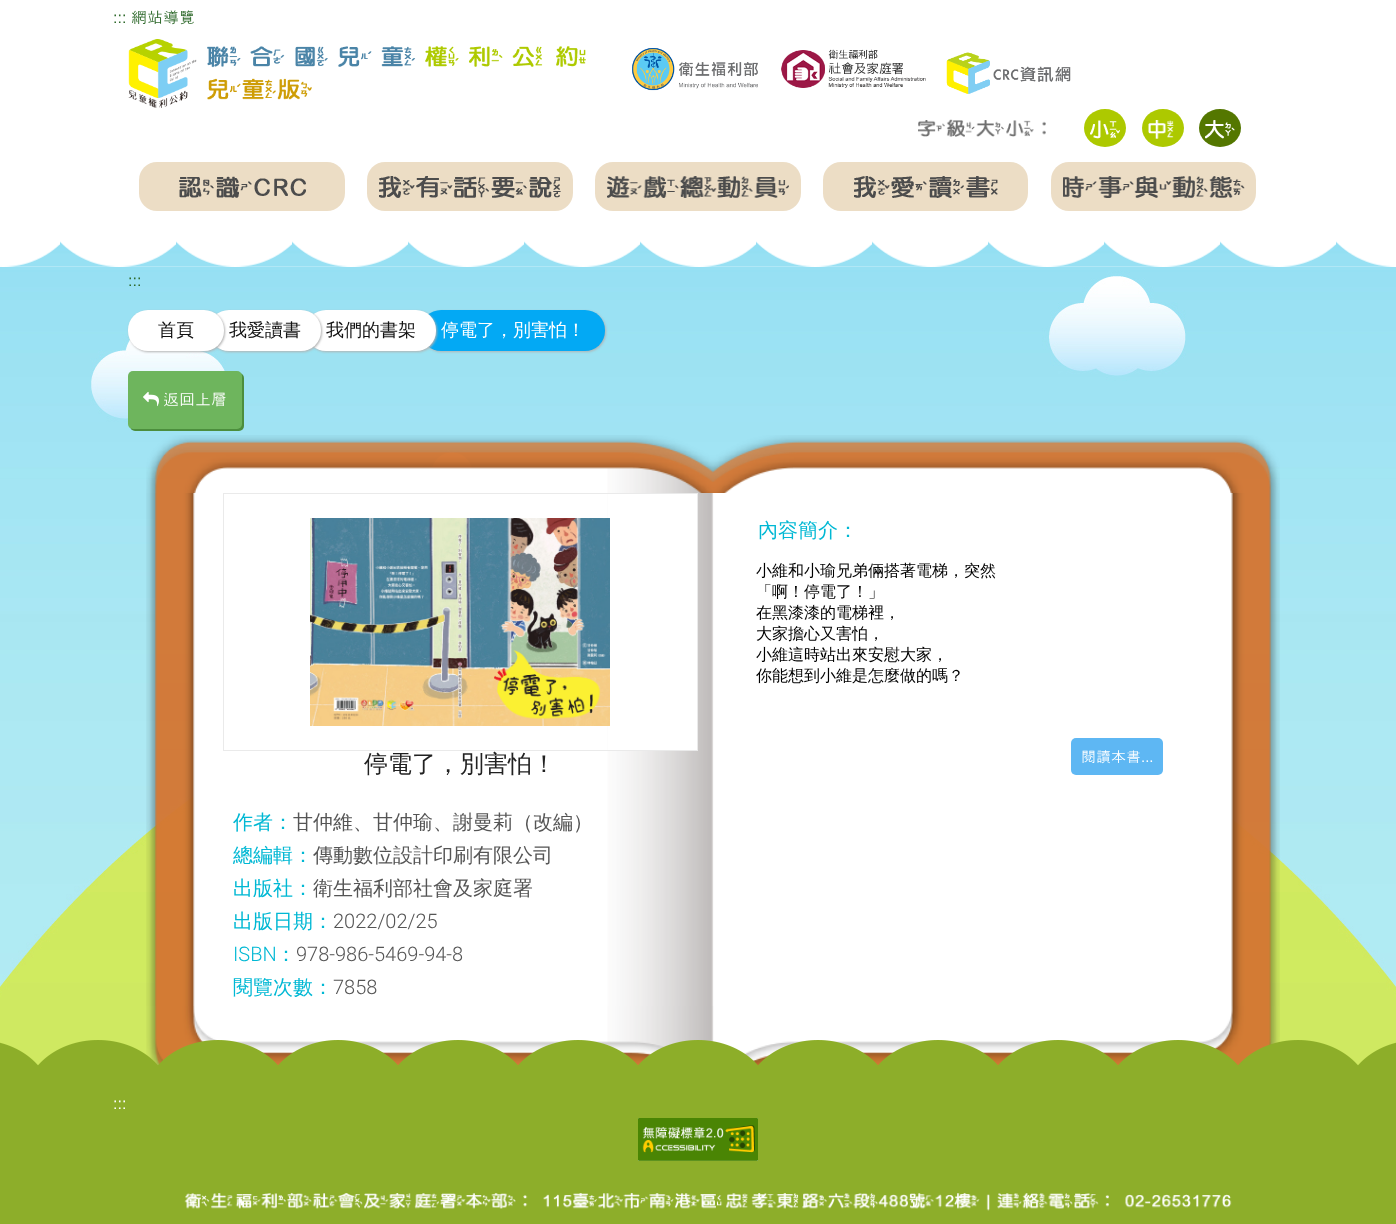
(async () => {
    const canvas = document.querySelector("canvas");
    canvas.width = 1396;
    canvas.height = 1224;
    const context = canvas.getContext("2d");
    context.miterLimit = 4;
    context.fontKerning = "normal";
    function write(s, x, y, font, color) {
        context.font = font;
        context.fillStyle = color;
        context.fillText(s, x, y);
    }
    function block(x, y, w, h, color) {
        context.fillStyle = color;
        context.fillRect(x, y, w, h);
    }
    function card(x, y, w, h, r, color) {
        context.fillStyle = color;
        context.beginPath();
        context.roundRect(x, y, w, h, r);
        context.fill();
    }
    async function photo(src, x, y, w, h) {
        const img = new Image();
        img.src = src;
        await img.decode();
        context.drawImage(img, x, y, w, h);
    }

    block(0, 0, 1396, 1224, "rgb(255, 255, 255)");
    await photo("media/1.png", 0, 241, 1396, 825);
    await photo("media/2.png", 0, 0, 1396, 267);
    write(":::", 113, 23, "16px Liberation Sans", "rgb(46, 105, 43)");
    write("網站導覽", 131, 23, "16px Dotum", "rgb(46, 105, 43)");
    await photo("media/3.png", 128, 39, 458, 69);
    await photo("media/4.png", 632, 48, 126, 43);
    await photo("media/5.png", 781, 49, 145, 39);
    await photo("media/6.png", 946, 52, 125, 42);
    await photo("media/7.png", 918, 119, 128, 18);
    context.fillStyle = "rgb(173, 201, 0)";
    context.beginPath();
    context.ellipse(1105, 128, 21, 19, 0, 0, Math.PI * 2);
    context.fill();
    await photo("media/8.png", 1090, 120, 30, 19);
    context.beginPath();
    context.ellipse(1163, 128, 21, 19, 0, 0, Math.PI * 2);
    context.fill();
    await photo("media/9.png", 1148, 120, 27, 19);
    context.fillStyle = "rgb(84, 119, 0)";
    context.beginPath();
    context.ellipse(1220, 128, 21, 19, 0, 0, Math.PI * 2);
    context.fill();
    await photo("media/10.png", 1205, 120, 30, 19);
    card(139, 162, 206, 49, 18, "rgb(236, 221, 197)");
    await photo("media/11.png", 179, 176, 127, 22);
    card(367, 162, 206, 49, 18, "rgb(236, 221, 197)");
    await photo("media/12.png", 379, 176, 182, 22);
    card(595, 162, 206, 49, 18, "rgb(236, 221, 197)");
    await photo("media/13.png", 607, 176, 182, 22);
    card(823, 162, 205, 49, 18, "rgb(236, 221, 197)");
    await photo("media/14.png", 854, 176, 144, 22);
    card(1051, 162, 205, 49, 18, "rgb(236, 221, 197)");
    await photo("media/15.png", 1063, 176, 182, 22);
    write(":::", 128, 286, "16px Liberation Sans", "rgb(46, 105, 43)");
    context.fillStyle = "rgb(179, 179, 179)";
    context.filter = "blur(1px)";
    context.beginPath();
    context.roundRect(422, 311, 184, 41, 20);
    context.fill();
    context.filter = "none";
    card(421, 310, 184, 41, 20, "rgb(3, 169, 244)");
    context.fillStyle = "rgb(179, 179, 179)";
    context.filter = "blur(1px)";
    context.beginPath();
    context.roundRect(307, 311, 130, 41, 20);
    context.fill();
    context.filter = "none";
    card(306, 310, 130, 41, 20, "rgb(255, 255, 255)");
    context.fillStyle = "rgb(179, 179, 179)";
    context.filter = "blur(1px)";
    context.beginPath();
    context.roundRect(210, 311, 112, 41, 20);
    context.fill();
    context.filter = "none";
    card(209, 310, 112, 41, 20, "rgb(255, 255, 255)");
    context.fillStyle = "rgb(179, 179, 179)";
    context.filter = "blur(1px)";
    context.beginPath();
    context.roundRect(129, 311, 96, 41, 20);
    context.fill();
    context.filter = "none";
    card(128, 310, 96, 41, 20, "rgb(255, 255, 255)");
    write("首頁", 158, 336, "500 18px WenQuanYi Zen Hei", "rgb(17, 17, 17)");
    write("我愛讀書", 229, 336, "500 18px WenQuanYi Zen Hei", "rgb(17, 17, 17)");
    write("我們的書架", 326, 336, "500 18px WenQuanYi Zen Hei", "rgb(17, 17, 17)");
    write("停電了，別害怕！", 441, 336, "500 18px WenQuanYi Zen Hei", "rgb(255, 255, 255)");
    context.fillStyle = "rgb(76, 142, 61)";
    context.filter = "blur(0.5px)";
    context.beginPath();
    context.roundRect(130, 373, 114, 58, 5);
    context.fill();
    context.filter = "none";
    card(128, 371, 114, 58, 5, "rgb(110, 181, 93)");
    await photo("media/16.png", 143, 391, 16, 16);
    write("返回上層", 163, 405, "16px Dotum", "rgb(255, 255, 255)");
    await photo("media/17.png", 146, 435, 1134, 58);
    await photo("media/18.png", 146, 493, 1134, 513);
    write("內容簡介：", 758, 537, "500 20px WenQuanYi Zen Hei", "rgb(0, 184, 212)");
    await photo("media/19.png", 756, 562, 240, 122);
    card(1071, 738, 92, 37, 5, "rgb(94, 183, 243)");
    write("閱讀本書", 1081, 762, "15px Dotum", "rgb(255, 255, 255)");
    write("...", 1141, 762, "15px Liberation Sans", "rgb(255, 255, 255)");
    block(608, 494, 89, 256, "rgb(255, 255, 255)");
    context.strokeStyle = "rgb(234, 234, 234)";
    context.strokeRect(223.5, 493.5, 474, 257);
    await photo("media/20.png", 310, 518, 300, 208);
    write("停電了，別害怕！", 364, 772, "500 24px WenQuanYi Zen Hei", "rgb(33, 33, 33)");
    write("作者：", 233, 829, "500 20px WenQuanYi Zen Hei", "rgb(0, 184, 212)");
    write("甘仲維、甘仲瑜、謝曼莉（改編）", 293, 829, "500 20px WenQuanYi Zen Hei", "rgb(85, 85, 85)");
    write("總編輯：", 233, 862, "500 20px WenQuanYi Zen Hei", "rgb(0, 184, 212)");
    write("傳動數位設計印刷有限公司", 313, 862, "500 20px WenQuanYi Zen Hei", "rgb(85, 85, 85)");
    write("出版社：", 233, 895, "500 20px WenQuanYi Zen Hei", "rgb(0, 184, 212)");
    write("衛生福利部社會及家庭署", 313, 895, "500 20px WenQuanYi Zen Hei", "rgb(85, 85, 85)");
    write("出版日期：", 233, 928, "500 20px WenQuanYi Zen Hei", "rgb(0, 184, 212)");
    write("2022/02/25", 333, 928, "300 20px Roboto", "rgb(85, 85, 85)");
    write("ISBN", 233, 961, "300 20px Roboto", "rgb(0, 184, 212)");
    write("：", 276, 961, "500 20px WenQuanYi Zen Hei", "rgb(0, 184, 212)");
    write("978-986-5469-94-8", 296, 961, "300 20px Roboto", "rgb(85, 85, 85)");
    write("閱覽次數：", 233, 994, "500 20px WenQuanYi Zen Hei", "rgb(0, 184, 212)");
    write("7858", 333, 994, "300 20px Roboto", "rgb(85, 85, 85)");
    await photo("media/21.png", 146, 1006, 1134, 60);
    await photo("media/22.png", 0, 1040, 1396, 30);
    block(0, 1070, 1396, 154, "rgb(141, 174, 42)");
    write(":::", 113, 1109, "16px Liberation Sans", "rgb(255, 255, 255)");
    await photo("media/23.png", 638, 1118, 120, 43);
    await photo("media/24.png", 184, 1193, 1048, 18);
})();
